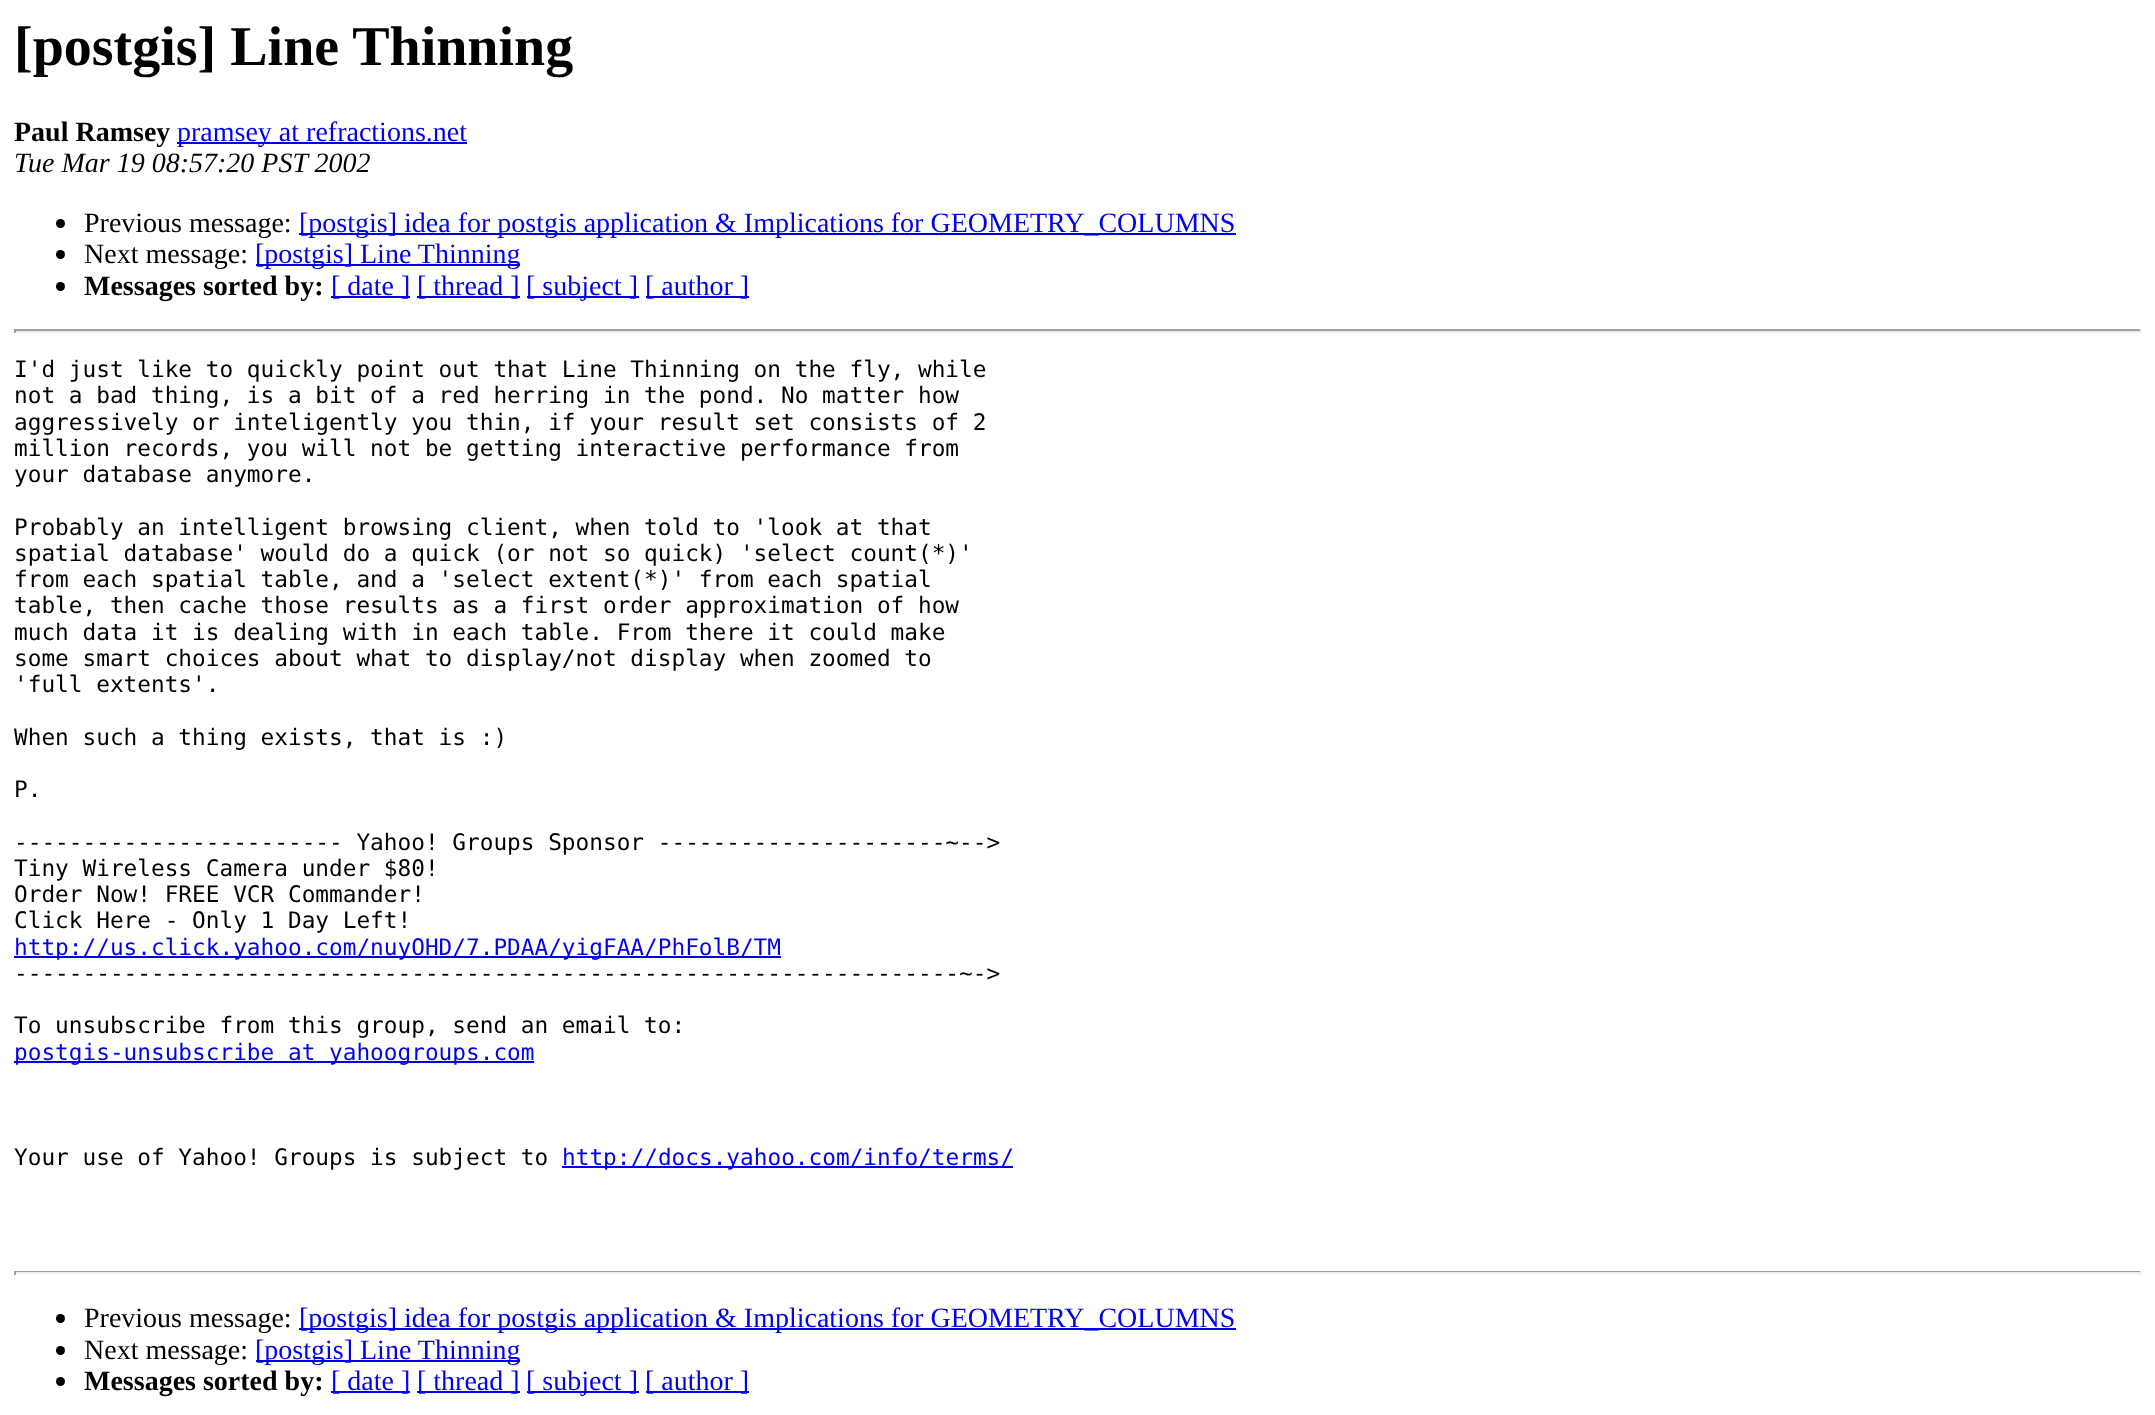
(async () => {
    const canvas = document.querySelector("canvas");
    canvas.width = 2155;
    canvas.height = 1415;
    const context = canvas.getContext("2d");
    context.miterLimit = 4;
    context.fontKerning = "normal";
    function write(s, x, y, font, color) {
        context.font = font;
        context.fillStyle = color;
        context.fillText(s, x, y);
    }
    function block(x, y, w, h, color) {
        context.fillStyle = color;
        context.fillRect(x, y, w, h);
    }

    block(0, 0, 2155, 1415, "rgb(255, 255, 255)");
    write("[postgis] Line Thinning", 14, 65, "bold 56px Liberation Serif", "rgb(0, 0, 0)");
    write("Paul Ramsey", 14, 141, "bold 28px Liberation Serif", "rgb(0, 0, 0)");
    block(177, 142, 290, 2, "rgb(0, 0, 238)");
    write("pramsey at refractions.net", 177, 141, "28px Liberation Serif", "rgb(0, 0, 238)");
    write("Tue Mar 19 08:57:20 PST 2002", 14, 172, "italic 28px Liberation Serif", "rgb(0, 0, 0)");
    context.beginPath();
    context.arc(60.5, 223.5, 4.5, 0, Math.PI * 2);
    context.fill();
    write("Previous message:", 84, 232, "28px Liberation Serif", "rgb(0, 0, 0)");
    block(299, 233, 937, 2, "rgb(0, 0, 238)");
    write("[postgis] idea for postgis application & Implications for GEOMETRY_COLUMNS", 299, 232, "28px Liberation Serif", "rgb(0, 0, 238)");
    context.fillStyle = "rgb(0, 0, 0)";
    context.beginPath();
    context.arc(60.5, 254.5, 4.5, 0, Math.PI * 2);
    context.fill();
    write("Next message:", 84, 263, "28px Liberation Serif", "rgb(0, 0, 0)");
    block(256, 264, 264, 2, "rgb(0, 0, 238)");
    write("[postgis] Line Thinning", 255, 263, "28px Liberation Serif", "rgb(0, 0, 238)");
    context.fillStyle = "rgb(0, 0, 0)";
    context.beginPath();
    context.arc(60.5, 286.5, 4.5, 0, Math.PI * 2);
    context.fill();
    write("Messages sorted by:", 84, 295, "bold 28px Liberation Serif", "rgb(0, 0, 0)");
    block(331, 296, 79, 2, "rgb(0, 0, 238)");
    write("[ date ]", 331, 295, "28px Liberation Serif", "rgb(0, 0, 238)");
    block(417, 296, 103, 2, "rgb(0, 0, 238)");
    write("[ thread ]", 417, 295, "28px Liberation Serif", "rgb(0, 0, 238)");
    block(527, 296, 112, 2, "rgb(0, 0, 238)");
    write("[ subject ]", 526, 295, "28px Liberation Serif", "rgb(0, 0, 238)");
    block(646, 296, 103, 2, "rgb(0, 0, 238)");
    write("[ author ]", 645, 295, "28px Liberation Serif", "rgb(0, 0, 238)");
    block(14, 329, 2128, 2, "rgb(159, 159, 159)");
    block(2140, 329, 2, 4, "rgb(238, 238, 238)");
    block(14, 331, 2128, 2, "rgb(238, 238, 238)");
    block(14, 329, 2, 4, "rgb(159, 159, 159)");
    write("I'd just like to quickly point out that Line Thinning on the fly, while", 14, 377, "22.75px DejaVu Sans Mono", "rgb(0, 0, 0)");
    write("not a bad thing, is a bit of a red herring in the pond. No matter how", 14, 403, "22.75px DejaVu Sans Mono", "rgb(0, 0, 0)");
    write("aggressively or inteligently you thin, if your result set consists of 2", 14, 430, "22.75px DejaVu Sans Mono", "rgb(0, 0, 0)");
    write("million records, you will not be getting interactive performance from", 14, 456, "22.75px DejaVu Sans Mono", "rgb(0, 0, 0)");
    write("your database anymore.", 14, 482, "22.75px DejaVu Sans Mono", "rgb(0, 0, 0)");
    write("Probably an intelligent browsing client, when told to 'look at that", 14, 535, "22.75px DejaVu Sans Mono", "rgb(0, 0, 0)");
    write("spatial database' would do a quick (or not so quick) 'select count(*)'", 14, 561, "22.75px DejaVu Sans Mono", "rgb(0, 0, 0)");
    write("from each spatial table, and a 'select extent(*)' from each spatial", 14, 587, "22.75px DejaVu Sans Mono", "rgb(0, 0, 0)");
    write("table, then cache those results as a first order approximation of how", 14, 613, "22.75px DejaVu Sans Mono", "rgb(0, 0, 0)");
    write("much data it is dealing with in each table. From there it could make", 14, 640, "22.75px DejaVu Sans Mono", "rgb(0, 0, 0)");
    write("some smart choices about what to display/not display when zoomed to", 14, 666, "22.75px DejaVu Sans Mono", "rgb(0, 0, 0)");
    write("'full extents'.", 14, 692, "22.75px DejaVu Sans Mono", "rgb(0, 0, 0)");
    write("When such a thing exists, that is :)", 14, 745, "22.75px DejaVu Sans Mono", "rgb(0, 0, 0)");
    write("P.", 14, 797, "22.75px DejaVu Sans Mono", "rgb(0, 0, 0)");
    write("------------------------ Yahoo! Groups Sponsor ---------------------~-->", 14, 850, "22.75px DejaVu Sans Mono", "rgb(0, 0, 0)");
    write("Tiny Wireless Camera under $80!", 14, 876, "22.75px DejaVu Sans Mono", "rgb(0, 0, 0)");
    write("Order Now! FREE VCR Commander!", 14, 902, "22.75px DejaVu Sans Mono", "rgb(0, 0, 0)");
    write("Click Here - Only 1 Day Left!", 14, 928, "22.75px DejaVu Sans Mono", "rgb(0, 0, 0)");
    block(14, 956, 767, 2, "rgb(0, 0, 238)");
    write("http://us.click.yahoo.com/nuyOHD/7.PDAA/yigFAA/PhFolB/TM", 14, 955, "22.75px DejaVu Sans Mono", "rgb(0, 0, 238)");
    write("---------------------------------------------------------------------~->", 14, 981, "22.75px DejaVu Sans Mono", "rgb(0, 0, 0)");
    write("To unsubscribe from this group, send an email to:", 14, 1033, "22.75px DejaVu Sans Mono", "rgb(0, 0, 0)");
    block(14, 1061, 520, 2, "rgb(0, 0, 238)");
    write("postgis-unsubscribe at yahoogroups.com", 14, 1060, "22.75px DejaVu Sans Mono", "rgb(0, 0, 238)");
    write("Your use of Yahoo! Groups is subject to", 14, 1165, "22.75px DejaVu Sans Mono", "rgb(0, 0, 0)");
    block(562, 1166, 451, 2, "rgb(0, 0, 238)");
    write("http://docs.yahoo.com/info/terms/", 562, 1165, "22.75px DejaVu Sans Mono", "rgb(0, 0, 238)");
    block(14, 1271, 2128, 1, "rgb(159, 159, 159)");
    block(2140, 1271, 2, 4, "rgb(238, 238, 238)");
    block(14, 1272, 2128, 2, "rgb(238, 238, 238)");
    block(14, 1271, 2, 4, "rgb(159, 159, 159)");
    context.fillStyle = "rgb(0, 0, 0)";
    context.beginPath();
    context.arc(60.5, 1318.5, 4.5, 0, Math.PI * 2);
    context.fill();
    write("Previous message:", 84, 1327, "28px Liberation Serif", "rgb(0, 0, 0)");
    block(299, 1328, 937, 2, "rgb(0, 0, 238)");
    write("[postgis] idea for postgis application & Implications for GEOMETRY_COLUMNS", 299, 1327, "28px Liberation Serif", "rgb(0, 0, 238)");
    context.fillStyle = "rgb(0, 0, 0)";
    context.beginPath();
    context.arc(60.5, 1350.5, 4.5, 0, Math.PI * 2);
    context.fill();
    write("Next message:", 84, 1359, "28px Liberation Serif", "rgb(0, 0, 0)");
    block(256, 1360, 264, 2, "rgb(0, 0, 238)");
    write("[postgis] Line Thinning", 255, 1359, "28px Liberation Serif", "rgb(0, 0, 238)");
    context.fillStyle = "rgb(0, 0, 0)";
    context.beginPath();
    context.arc(60.5, 1381.5, 4.5, 0, Math.PI * 2);
    context.fill();
    write("Messages sorted by:", 84, 1390, "bold 28px Liberation Serif", "rgb(0, 0, 0)");
    block(331, 1391, 79, 2, "rgb(0, 0, 238)");
    write("[ date ]", 331, 1390, "28px Liberation Serif", "rgb(0, 0, 238)");
    block(417, 1391, 103, 2, "rgb(0, 0, 238)");
    write("[ thread ]", 417, 1390, "28px Liberation Serif", "rgb(0, 0, 238)");
    block(527, 1391, 112, 2, "rgb(0, 0, 238)");
    write("[ subject ]", 526, 1390, "28px Liberation Serif", "rgb(0, 0, 238)");
    block(646, 1391, 103, 2, "rgb(0, 0, 238)");
    write("[ author ]", 645, 1390, "28px Liberation Serif", "rgb(0, 0, 238)");
})();
